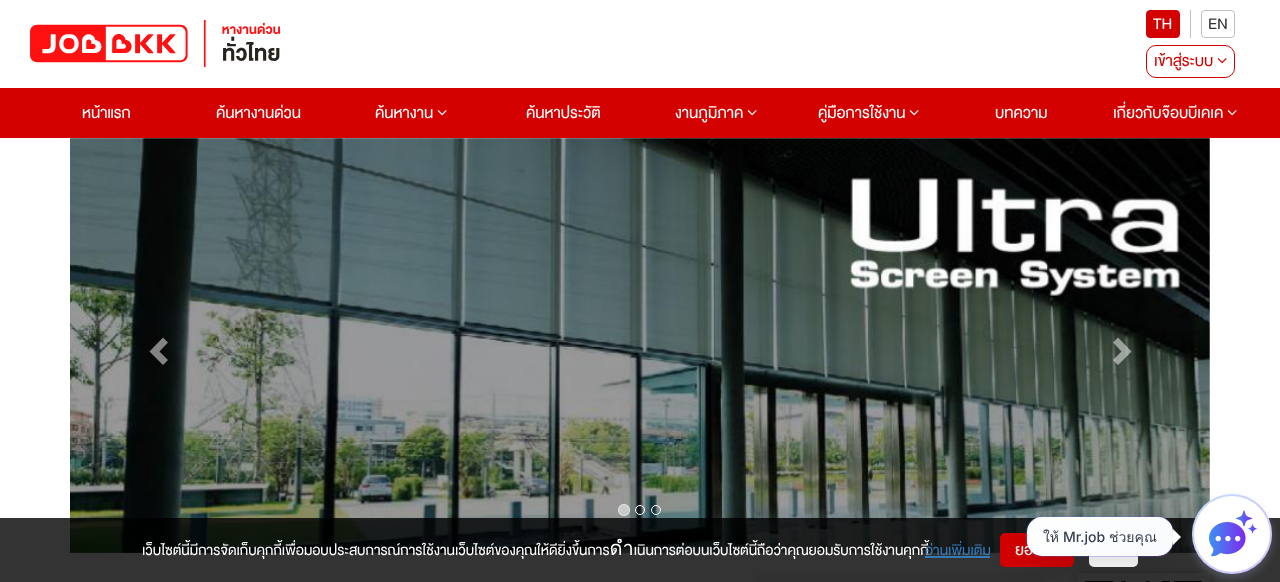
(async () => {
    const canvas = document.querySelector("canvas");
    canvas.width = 1280;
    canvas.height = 582;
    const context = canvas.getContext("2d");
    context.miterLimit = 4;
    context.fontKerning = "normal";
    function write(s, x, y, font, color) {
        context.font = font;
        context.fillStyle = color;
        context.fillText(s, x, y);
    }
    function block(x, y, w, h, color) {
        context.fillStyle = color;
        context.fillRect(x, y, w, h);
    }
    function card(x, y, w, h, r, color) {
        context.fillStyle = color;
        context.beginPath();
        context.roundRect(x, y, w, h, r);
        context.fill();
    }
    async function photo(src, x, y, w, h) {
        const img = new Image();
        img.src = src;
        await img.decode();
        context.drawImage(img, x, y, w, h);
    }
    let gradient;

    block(0, 0, 1280, 582, "rgb(255, 255, 255)");
    await photo("media/1.png", 30, 20, 250, 47);
    block(1190, 10, 1, 28, "rgb(191, 191, 191)");
    context.fillStyle = "rgb(212, 1, 1)";
    context.beginPath();
    context.roundRect(1146.5, 10.5, 33, 27, 3.5);
    context.fill();
    context.strokeStyle = "rgb(212, 1, 1)";
    context.stroke();
    write("TH", 1153, 29, "22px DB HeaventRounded", "rgb(255, 255, 255)");
    context.beginPath();
    context.roundRect(1201.5, 10.5, 33, 27, 3.5);
    context.strokeStyle = "rgb(191, 191, 191)";
    context.stroke();
    write("EN", 1208, 29, "22px DB HeaventRounded", "rgb(51, 51, 51)");
    context.beginPath();
    context.roundRect(1146.5, 45.5, 88, 32, 9.5);
    context.strokeStyle = "rgb(212, 1, 1)";
    context.stroke();
    write("เข้าสู่ระบบ", 1154, 66, "22px DB HeaventRounded", "rgb(212, 1, 1)");
    await photo("media/2.png", 1217, 58, 10, 6);
    block(0, 88, 1280, 50, "rgb(212, 1, 1)");
    write("หน้าแรก", 82, 118, "22px DB HeaventRounded", "rgb(255, 255, 255)");
    write("ค้นหางานด่วน", 216, 118, "22px DB HeaventRounded", "rgb(255, 255, 255)");
    write("ค้นหางาน", 375, 118, "22px DB HeaventRounded", "rgb(255, 255, 255)");
    await photo("media/3.png", 437, 110, 10, 6);
    write("ค้นหาประวัติ", 526, 118, "22px DB HeaventRounded", "rgb(255, 255, 255)");
    write("งานภูมิภาค", 675, 118, "22px DB HeaventRounded", "rgb(255, 255, 255)");
    await photo("media/3.png", 747, 110, 10, 6);
    write("คู่มือการใช้งาน", 818, 118, "22px DB HeaventRounded", "rgb(255, 255, 255)");
    await photo("media/3.png", 909, 110, 10, 6);
    write("บทความ", 995, 118, "22px DB HeaventRounded", "rgb(255, 255, 255)");
    write("เกี่ยวกับจ๊อบบีเคเค", 1113, 118, "22px DB HeaventRounded", "rgb(255, 255, 255)");
    await photo("media/3.png", 1227, 110, 10, 6);
    block(70, 138, 1140, 415, "rgb(241, 241, 241)");
    await photo("media/4.png", 70, 138, 1140, 415);
    context.fillStyle = "rgba(255, 255, 255, 0.5)";
    context.beginPath();
    context.moveTo(168, 342.5);
    context.lineTo(159.5, 351.5);
    context.lineTo(168, 360);
    context.lineTo(163, 365);
    context.lineTo(149.5, 351.5);
    context.lineTo(163, 337.5);
    context.closePath();
    context.fill();
    context.beginPath();
    context.moveTo(1131.5, 351.5);
    context.lineTo(1118, 365);
    context.lineTo(1113, 360);
    context.lineTo(1121.5, 351.5);
    context.lineTo(1113, 342.5);
    context.lineTo(1118, 337.5);
    context.closePath();
    context.fill();
    context.beginPath();
    context.arc(624, 510, 6, 0, Math.PI * 2);
    context.fill();
    context.beginPath();
    context.arc(624, 510, 5.5, 0, Math.PI * 2);
    context.strokeStyle = "rgba(255, 255, 255, 0.5)";
    context.stroke();
    context.beginPath();
    context.arc(640, 510, 4.5, 0, Math.PI * 2);
    context.strokeStyle = "rgb(255, 255, 255)";
    context.stroke();
    context.beginPath();
    context.arc(656, 510, 4.5, 0, Math.PI * 2);
    context.stroke();
    card(753, 573, 294, 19, 10, "rgb(246, 243, 242)");
    context.save();
    context.beginPath();
    context.moveTo(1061, 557);
    context.lineTo(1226, 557);
    context.lineTo(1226, 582);
    context.lineTo(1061, 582);
    context.closePath();
    context.moveTo(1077, 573);
    context.lineTo(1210, 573);
    context.lineTo(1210, 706);
    context.lineTo(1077, 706);
    context.closePath();
    context.clip("evenodd");
    context.fillStyle = "rgb(191, 191, 191)";
    context.filter = "blur(5px)";
    context.beginPath();
    context.rect(1077, 573, 133, 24);
    context.fill();
    context.filter = "none";
    context.restore();
    await photo("media/6.png", 1085, 581, 117, 1);
    block(0, 518, 1280, 64, "rgba(0, 0, 0, 0.8)");
    write("เว็บไซต์นี้มีการจัดเก็บคุกกี้เพื่อมอบประสบการณ์การใช้งานเว็บไซต์ของคุณให้ดียิ่งขึ้นการดำเนินการต่อบนเว็บไซต์นี้ถือว่าคุณยอมรับการใช้งานคุกกี้", 142, 555, "20px DB HeaventRounded", "rgb(255, 255, 255)");
    write("อ่านเพิ่มเติม", 925, 555, "20px DB HeaventRounded", "rgb(51, 122, 183)");
    block(925, 556, 65, 2, "rgb(51, 122, 183)");
    card(1000, 533, 74, 34, 5, "rgb(212, 1, 1)");
    write("ยอ", 1015, 555, "22px DB HeaventRounded", "rgb(255, 255, 255)");
    card(1089, 533, 49, 34, 5, "rgb(255, 255, 255)");
    context.fillStyle = "rgba(154, 170, 207, 0.3)";
    context.filter = "blur(4px)";
    context.beginPath();
    context.roundRect(1192, 498, 80, 80, 40);
    context.fill();
    context.filter = "none";
    context.fillStyle = "rgb(255, 255, 255)";
    context.beginPath();
    context.arc(1232, 534, 40, 0, Math.PI * 2);
    context.fill();
    gradient = context.createLinearGradient(1192, 494, 1272, 574);
    gradient.addColorStop(0, "rgba(60, 145, 241, 0.3)");
    gradient.addColorStop(1, "rgba(126, 43, 237, 0.3)");
    context.fillStyle = gradient;
    context.beginPath();
    context.arc(1232, 534, 40, 0, Math.PI * 2);
    context.fill();
    context.fillStyle = "rgb(255, 255, 255)";
    context.beginPath();
    context.arc(1232, 534, 38, 0, Math.PI * 2);
    context.fill();
    await photo("media/5.png", 1209, 510, 49, 47);
    context.fillStyle = "rgba(0, 0, 0, 0.15)";
    context.filter = "blur(16px)";
    context.beginPath();
    context.roundRect(1026, 524, 148, 41, 16);
    context.fill();
    context.filter = "none";
    gradient = context.createLinearGradient(1053, 489, 1147, 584);
    gradient.addColorStop(0, "rgba(60, 145, 241, 0.3)");
    gradient.addColorStop(1, "rgba(126, 43, 237, 0.3)");
    context.fillStyle = gradient;
    context.beginPath();
    context.roundRect(1026, 516, 148, 41, 16);
    context.fill();
    gradient = context.createLinearGradient(1053, 489, 1147, 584);
    gradient.addColorStop(0, "rgb(255, 255, 255)");
    gradient.addColorStop(1, "rgb(248, 250, 252)");
    context.fillStyle = gradient;
    context.beginPath();
    context.roundRect(1027, 517, 146, 39, 15);
    context.fill();
    write("ให้", 1043, 542, "14px Loma", "rgb(55, 65, 81)");
    write("Mr.job", 1063, 542, "500 14px Inter", "rgb(55, 65, 81)");
    write("ช่วยคุณ", 1109, 542, "14px Loma", "rgb(55, 65, 81)");
    context.fillStyle = "rgb(255, 255, 255)";
    context.beginPath();
    context.moveTo(1173, 545);
    context.lineTo(1173, 529);
    context.lineTo(1181, 537);
    context.closePath();
    context.fill();
})();
